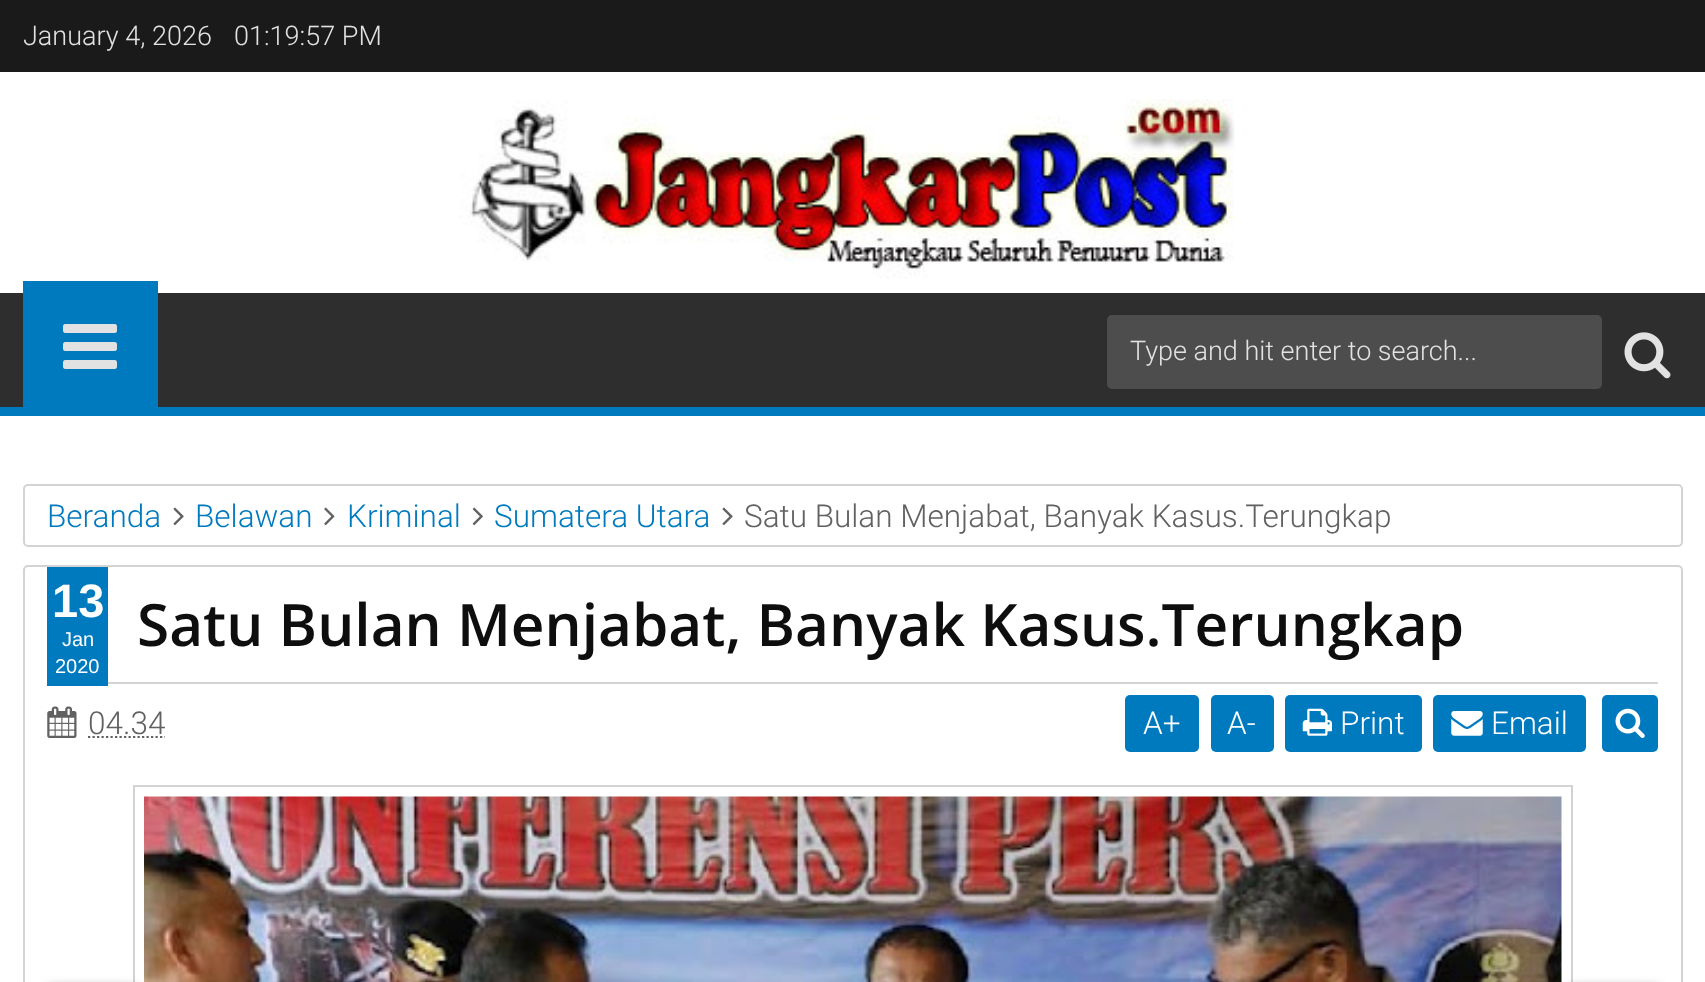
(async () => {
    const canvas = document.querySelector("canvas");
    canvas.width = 1705;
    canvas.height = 982;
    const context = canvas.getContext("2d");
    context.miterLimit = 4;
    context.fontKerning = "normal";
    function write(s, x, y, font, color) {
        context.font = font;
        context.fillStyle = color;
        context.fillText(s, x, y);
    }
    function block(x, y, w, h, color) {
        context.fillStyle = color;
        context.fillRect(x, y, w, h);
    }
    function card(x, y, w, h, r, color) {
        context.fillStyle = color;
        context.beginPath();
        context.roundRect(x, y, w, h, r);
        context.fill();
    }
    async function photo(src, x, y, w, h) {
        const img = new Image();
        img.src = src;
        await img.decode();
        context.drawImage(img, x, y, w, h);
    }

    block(0, 0, 1705, 982, "rgb(255, 255, 255)");
    block(0, 0, 1705, 72, "rgb(26, 26, 26)");
    write("January 4, 2026", 23, 45, "300 27px Roboto", "rgb(226, 226, 226)");
    write("01:19:57 PM", 234, 45, "300 27px Roboto", "rgb(226, 226, 226)");
    await photo("media/1.png", 459, 99, 776, 180);
    block(0, 293, 1705, 114, "rgb(46, 46, 46)");
    block(0, 407, 1705, 9, "rgb(0, 122, 190)");
    block(23, 281, 135, 126, "rgb(0, 122, 190)");
    await photo("media/2.png", 63, 324, 54, 45);
    card(1107, 315, 495, 74, 5, "rgb(77, 77, 77)");
    write("Type and hit enter to search...", 1130, 360, "300 27px Roboto", "rgb(226, 226, 226)");
    await photo("media/3.png", 1624, 332, 47, 47);
    context.beginPath();
    context.roundRect(24, 485, 1658, 61, 4);
    context.strokeStyle = "rgb(211, 211, 211)";
    context.lineWidth = 2;
    context.stroke();
    write("Beranda", 47, 527, "300 31.5px Roboto", "rgb(0, 122, 190)");
    await photo("media/4.png", 173, 507, 11, 19);
    write("Belawan", 195, 527, "300 31.5px Roboto", "rgb(0, 122, 190)");
    await photo("media/5.png", 324, 507, 11, 19);
    write("Kriminal", 347, 527, "300 31.5px Roboto", "rgb(0, 122, 190)");
    await photo("media/6.png", 472, 507, 11, 19);
    write("Sumatera Utara", 494, 527, "300 31.5px Roboto", "rgb(0, 122, 190)");
    await photo("media/4.png", 722, 507, 11, 19);
    write("Satu Bulan Menjabat, Banyak Kasus.Terungkap", 744, 527, "300 31.5px Roboto", "rgb(97, 97, 97)");
    context.beginPath();
    context.roundRect(24, 566, 1658, 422, 4);
    context.stroke();
    block(47, 567, 61, 119, "rgb(0, 122, 190)");
    write("13", 52, 617, "bold 47px Liberation Sans", "rgb(255, 255, 255)");
    write("Jan", 62, 646, "20px Liberation Sans", "rgb(255, 255, 255)");
    write("2020", 55, 673, "20px Liberation Sans", "rgb(255, 255, 255)");
    block(108, 682, 1550, 2, "rgb(211, 211, 211)");
    write("Satu Bulan Menjabat, Banyak Kasus.Terungkap", 137, 646, "600 58.5px Open Sans", "rgb(14, 14, 14)");
    await photo("media/7.png", 47, 706, 30, 32);
    write("04.34", 88, 734, "300 31.5px Roboto", "rgb(97, 97, 97)");
    context.beginPath();
    context.moveTo(88, 737);
    context.lineTo(165, 737);
    context.strokeStyle = "rgb(97, 97, 97)";
    context.lineWidth = 2.2;
    context.setLineDash([2.25, 2.25]);
    context.stroke();
    card(1125, 695, 74, 57, 5, "rgb(0, 122, 190)");
    write("A+", 1143, 734, "300 31.5px Roboto", "rgb(255, 255, 255)");
    card(1211, 695, 63, 57, 5, "rgb(0, 122, 190)");
    write("A-", 1227, 734, "300 31.5px Roboto", "rgb(255, 255, 255)");
    card(1285, 695, 137, 57, 5, "rgb(0, 122, 190)");
    await photo("media/8.png", 1302, 708, 30, 28);
    write("Print", 1340, 734, "300 31.5px Roboto", "rgb(255, 255, 255)");
    card(1433, 695, 153, 57, 5, "rgb(0, 122, 190)");
    await photo("media/9.png", 1451, 711, 32, 25);
    write("Email", 1491, 734, "300 31.5px Roboto", "rgb(255, 255, 255)");
    card(1602, 695, 56, 57, 5, "rgb(0, 122, 190)");
    await photo("media/10.png", 1615, 708, 30, 30);
    context.strokeStyle = "rgb(211, 211, 211)";
    context.lineWidth = 2;
    context.setLineDash([]);
    context.strokeRect(134, 786, 1438, 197);
    await photo("media/11.png", 144, 796, 1418, 186);
    context.fillStyle = "rgba(0, 0, 0, 0.5)";
    context.filter = "blur(5.5px)";
    context.beginPath();
    context.roundRect(1454, 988, 94, 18, 7);
    context.fill();
    context.filter = "none";
    context.filter = "blur(5.5px)";
    context.beginPath();
    context.roundRect(1566, 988, 95, 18, 7);
    context.fill();
    context.filter = "none";
    context.filter = "blur(5.5px)";
    context.beginPath();
    context.roundRect(45, 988, 95, 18, 7);
    context.fill();
    context.filter = "none";
})();
